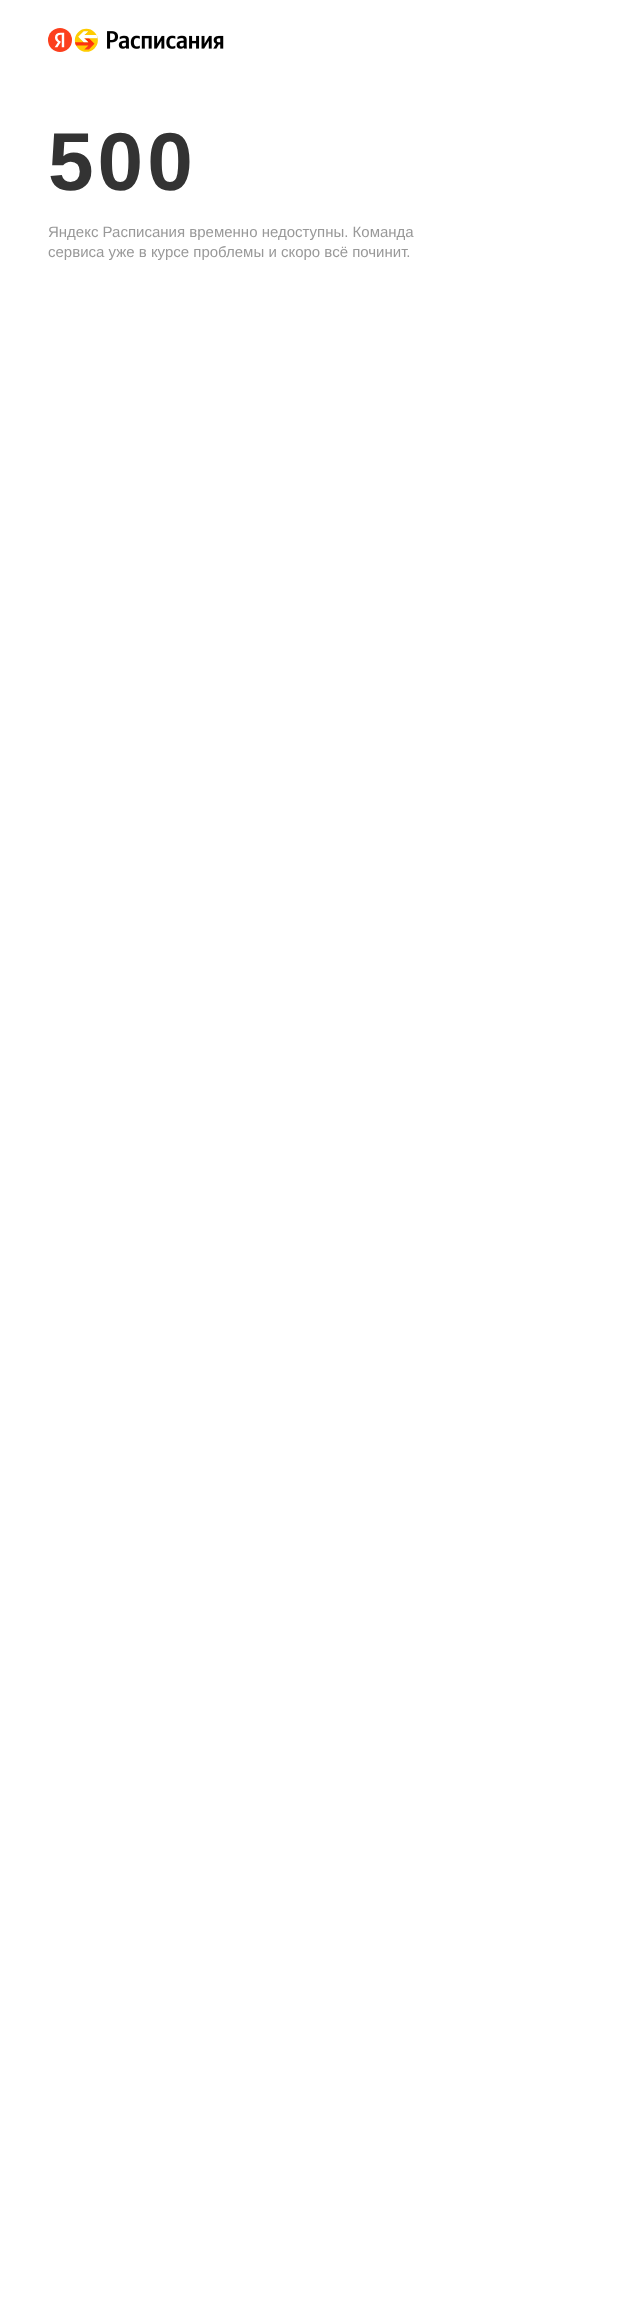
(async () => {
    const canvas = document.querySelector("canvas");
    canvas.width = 639;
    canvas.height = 2310;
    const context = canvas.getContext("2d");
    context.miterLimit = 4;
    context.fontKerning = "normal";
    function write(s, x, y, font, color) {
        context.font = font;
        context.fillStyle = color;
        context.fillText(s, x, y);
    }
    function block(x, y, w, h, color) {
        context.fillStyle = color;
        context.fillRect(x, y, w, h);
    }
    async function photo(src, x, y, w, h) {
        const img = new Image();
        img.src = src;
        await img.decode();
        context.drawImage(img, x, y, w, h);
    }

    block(0, 0, 639, 2310, "rgb(255, 255, 255)");
    await photo("media/1.png", 48, 28, 24, 24);
    await photo("media/2.png", 74, 28, 24, 24);
    await photo("media/3.png", 107, 31, 117, 18);
    context.letterSpacing = "4px";
    write("500", 48, 190, "bold 82px Liberation Sans", "rgb(51, 51, 51)");
    context.letterSpacing = "0px";
    write("Яндекс Расписания временно недоступны. Команда", 48, 237, "15px Liberation Sans", "rgb(153, 153, 153)");
    write("сервиса уже в курсе проблемы и скоро всё починит.", 48, 257, "15px Liberation Sans", "rgb(153, 153, 153)");
})();
